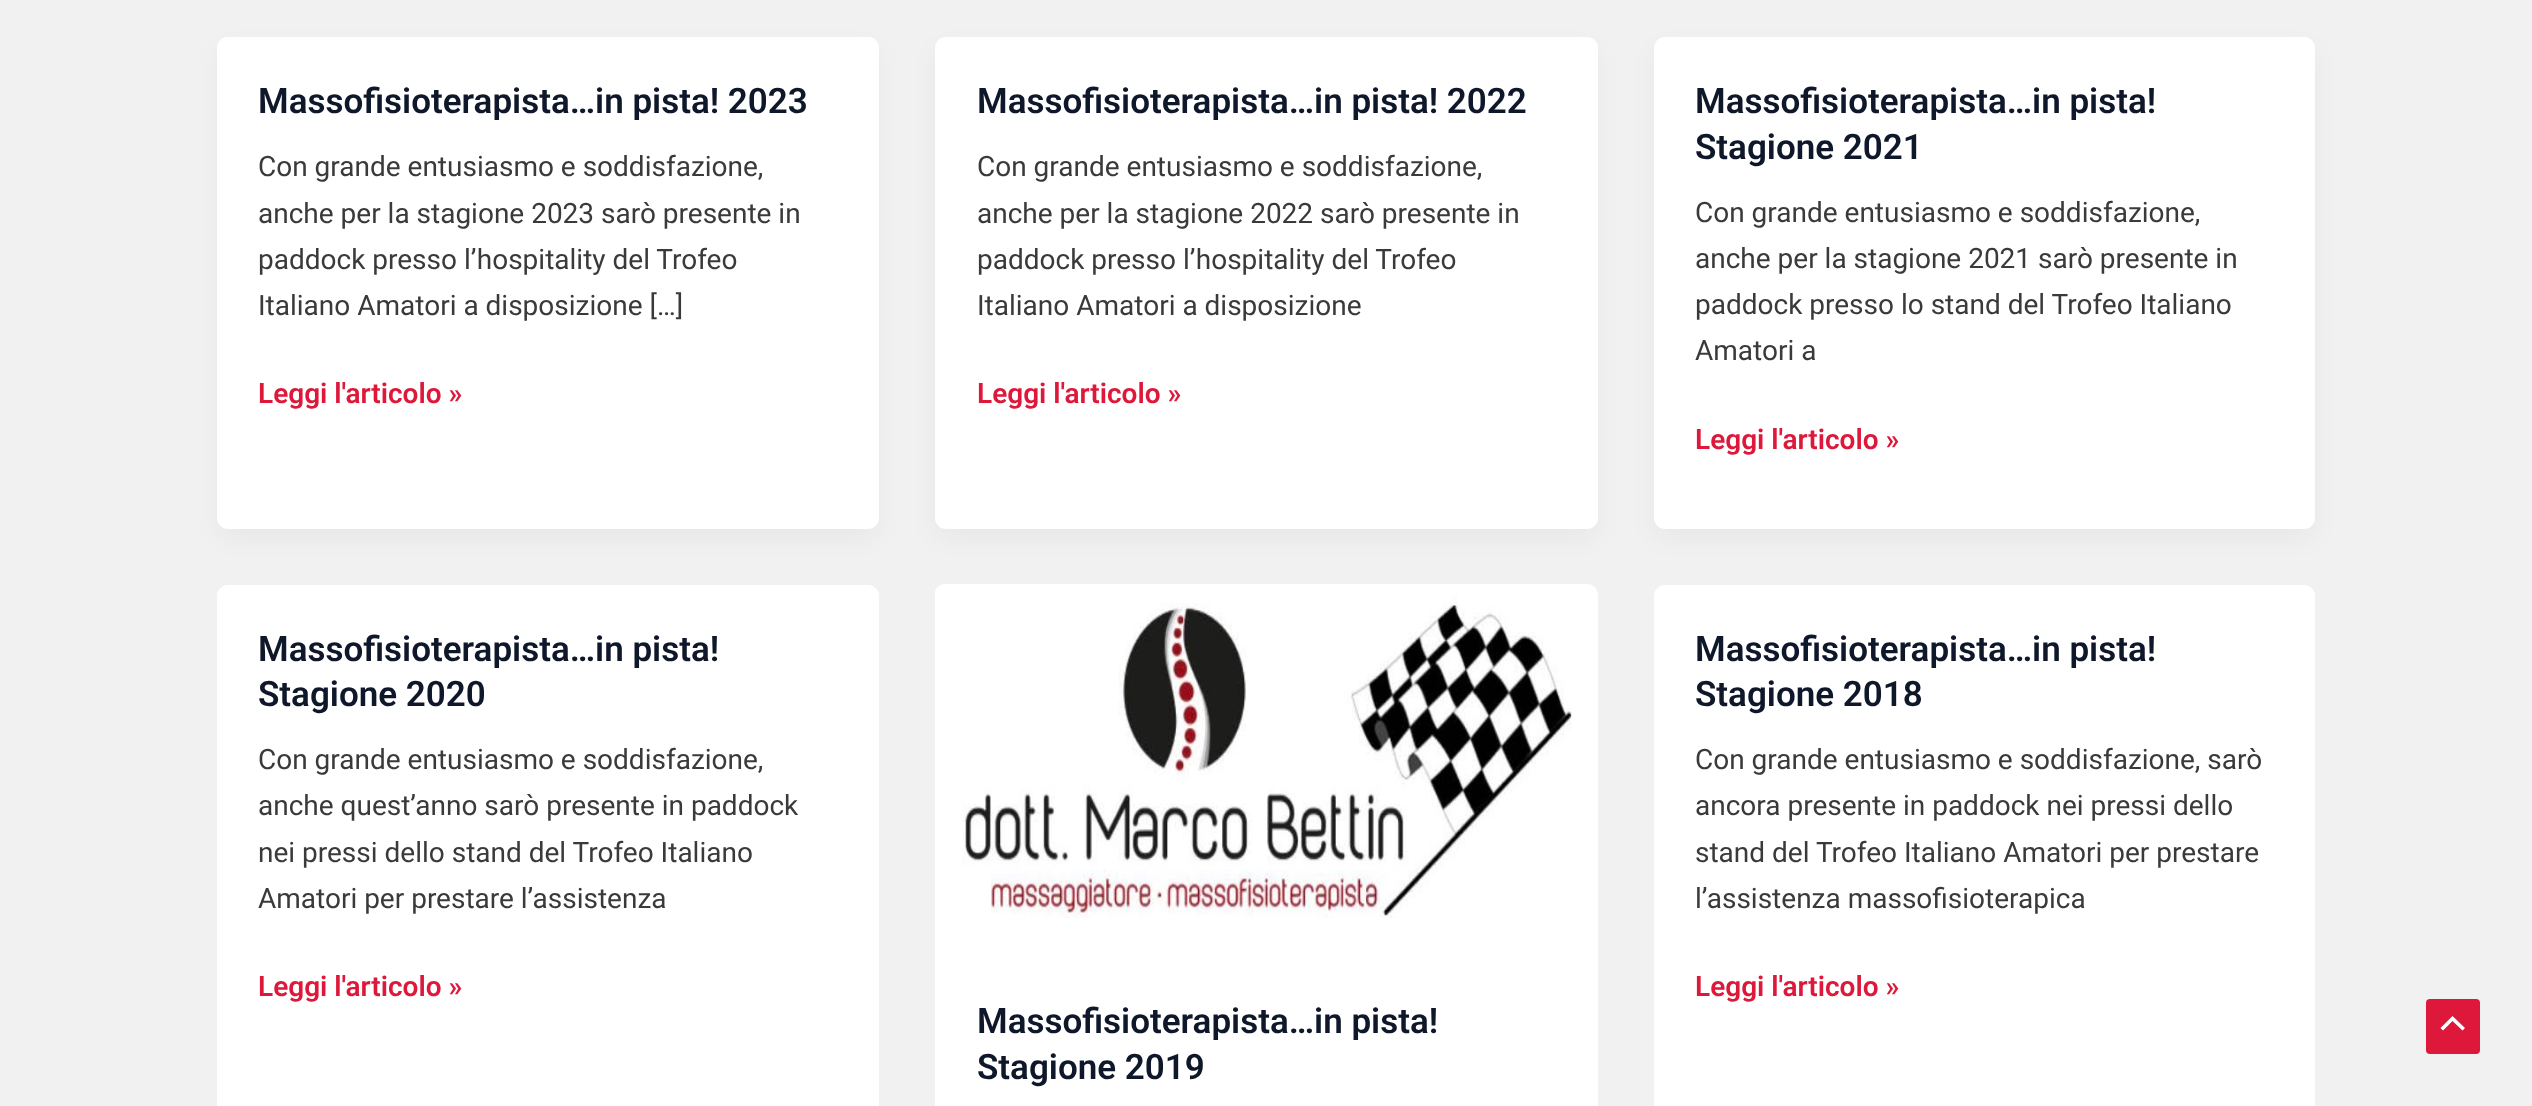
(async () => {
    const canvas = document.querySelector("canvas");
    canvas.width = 2532;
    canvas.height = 1106;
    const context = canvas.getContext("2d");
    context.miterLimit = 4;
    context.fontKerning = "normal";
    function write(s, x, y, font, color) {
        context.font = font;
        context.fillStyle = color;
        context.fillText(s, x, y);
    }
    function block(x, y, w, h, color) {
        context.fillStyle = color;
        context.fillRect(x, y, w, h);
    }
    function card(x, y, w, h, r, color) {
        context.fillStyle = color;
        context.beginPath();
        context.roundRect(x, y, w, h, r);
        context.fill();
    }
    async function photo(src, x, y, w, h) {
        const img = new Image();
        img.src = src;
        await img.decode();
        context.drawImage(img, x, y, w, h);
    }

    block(0, 0, 2532, 1106, "rgb(241, 241, 241)");
    context.fillStyle = "rgba(16, 24, 40, 0.05)";
    context.filter = "blur(13px)";
    context.beginPath();
    context.roundRect(221, 51, 654, 485, 7);
    context.fill();
    context.filter = "none";
    card(217, 37, 662, 492, 11, "rgb(255, 255, 255)");
    write("Massofisioterapista…in pista! 2023", 258, 113, "600 35px Roboto", "rgb(15, 23, 42)");
    write("Con grande entusiasmo e soddisfazione,", 258, 176, "28px Roboto", "rgb(58, 58, 58)");
    write("anche per la stagione 2023 sarò presente in", 258, 223, "28px Roboto", "rgb(58, 58, 58)");
    write("paddock presso l’hospitality del Trofeo", 258, 269, "28px Roboto", "rgb(58, 58, 58)");
    write("Italiano Amatori a disposizione […]", 258, 315, "28px Roboto", "rgb(58, 58, 58)");
    write("Leggi l'articolo »", 258, 403, "600 28px Roboto", "rgb(221, 24, 59)");
    context.fillStyle = "rgba(16, 24, 40, 0.05)";
    context.filter = "blur(13px)";
    context.beginPath();
    context.roundRect(938, 51, 656, 485, 7);
    context.fill();
    context.filter = "none";
    card(935, 37, 663, 492, 11, "rgb(255, 255, 255)");
    write("Massofisioterapista…in pista! 2022", 977, 113, "600 35px Roboto", "rgb(15, 23, 42)");
    write("Con grande entusiasmo e soddisfazione,", 977, 176, "28px Roboto", "rgb(58, 58, 58)");
    write("anche per la stagione 2022 sarò presente in", 977, 223, "28px Roboto", "rgb(58, 58, 58)");
    write("paddock presso l’hospitality del Trofeo", 977, 269, "28px Roboto", "rgb(58, 58, 58)");
    write("Italiano Amatori a disposizione", 977, 315, "28px Roboto", "rgb(58, 58, 58)");
    write("Leggi l'articolo »", 977, 403, "600 28px Roboto", "rgb(221, 24, 59)");
    context.fillStyle = "rgba(16, 24, 40, 0.05)";
    context.filter = "blur(13px)";
    context.beginPath();
    context.roundRect(1657, 51, 655, 485, 7);
    context.fill();
    context.filter = "none";
    card(1654, 37, 661, 492, 11, "rgb(255, 255, 255)");
    write("Massofisioterapista…in pista!", 1695, 113, "600 35px Roboto", "rgb(15, 23, 42)");
    write("Stagione 2021", 1695, 159, "600 35px Roboto", "rgb(15, 23, 42)");
    write("Con grande entusiasmo e soddisfazione,", 1695, 222, "28px Roboto", "rgb(58, 58, 58)");
    write("anche per la stagione 2021 sarò presente in", 1695, 268, "28px Roboto", "rgb(58, 58, 58)");
    write("paddock presso lo stand del Trofeo Italiano", 1695, 314, "28px Roboto", "rgb(58, 58, 58)");
    write("Amatori a", 1695, 360, "28px Roboto", "rgb(58, 58, 58)");
    write("Leggi l'articolo »", 1695, 449, "600 28px Roboto", "rgb(221, 24, 59)");
    card(217, 585, 662, 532, 11, "rgb(255, 255, 255)");
    write("Massofisioterapista…in pista!", 258, 661, "600 35px Roboto", "rgb(15, 23, 42)");
    write("Stagione 2020", 258, 706, "600 35px Roboto", "rgb(15, 23, 42)");
    write("Con grande entusiasmo e soddisfazione,", 258, 769, "28px Roboto", "rgb(58, 58, 58)");
    write("anche quest’anno sarò presente in paddock", 258, 815, "28px Roboto", "rgb(58, 58, 58)");
    write("nei pressi dello stand del Trofeo Italiano", 258, 862, "28px Roboto", "rgb(58, 58, 58)");
    write("Amatori per prestare l’assistenza", 258, 908, "28px Roboto", "rgb(58, 58, 58)");
    write("Leggi l'articolo »", 258, 996, "600 28px Roboto", "rgb(221, 24, 59)");
    card(1654, 585, 661, 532, 11, "rgb(255, 255, 255)");
    write("Massofisioterapista…in pista!", 1695, 661, "600 35px Roboto", "rgb(15, 23, 42)");
    write("Stagione 2018", 1695, 706, "600 35px Roboto", "rgb(15, 23, 42)");
    write("Con grande entusiasmo e soddisfazione, sarò", 1695, 769, "28px Roboto", "rgb(58, 58, 58)");
    write("ancora presente in paddock nei pressi dello", 1695, 815, "28px Roboto", "rgb(58, 58, 58)");
    write("stand del Trofeo Italiano Amatori per prestare", 1695, 862, "28px Roboto", "rgb(58, 58, 58)");
    write("l’assistenza massofisioterapica", 1695, 908, "28px Roboto", "rgb(58, 58, 58)");
    write("Leggi l'articolo »", 1695, 996, "600 28px Roboto", "rgb(221, 24, 59)");
    card(935, 585, 663, 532, 11, "rgb(255, 255, 255)");
    await photo("media/1.png", 935, 584, 662, 334);
    write("Massofisioterapista…in pista!", 977, 1033, "600 35px Roboto", "rgb(15, 23, 42)");
    write("Stagione 2019", 977, 1079, "600 35px Roboto", "rgb(15, 23, 42)");
    card(2426, 999, 54, 55, 4, "rgb(221, 24, 59)");
    context.fillStyle = "rgb(255, 255, 255)";
    context.beginPath();
    context.moveTo(2465, 1028);
    context.lineTo(2452.5, 1016);
    context.lineTo(2440.5, 1028);
    context.lineTo(2443, 1030.5);
    context.lineTo(2452.5, 1021);
    context.lineTo(2462.5, 1030.5);
    context.closePath();
    context.fill();
})();
